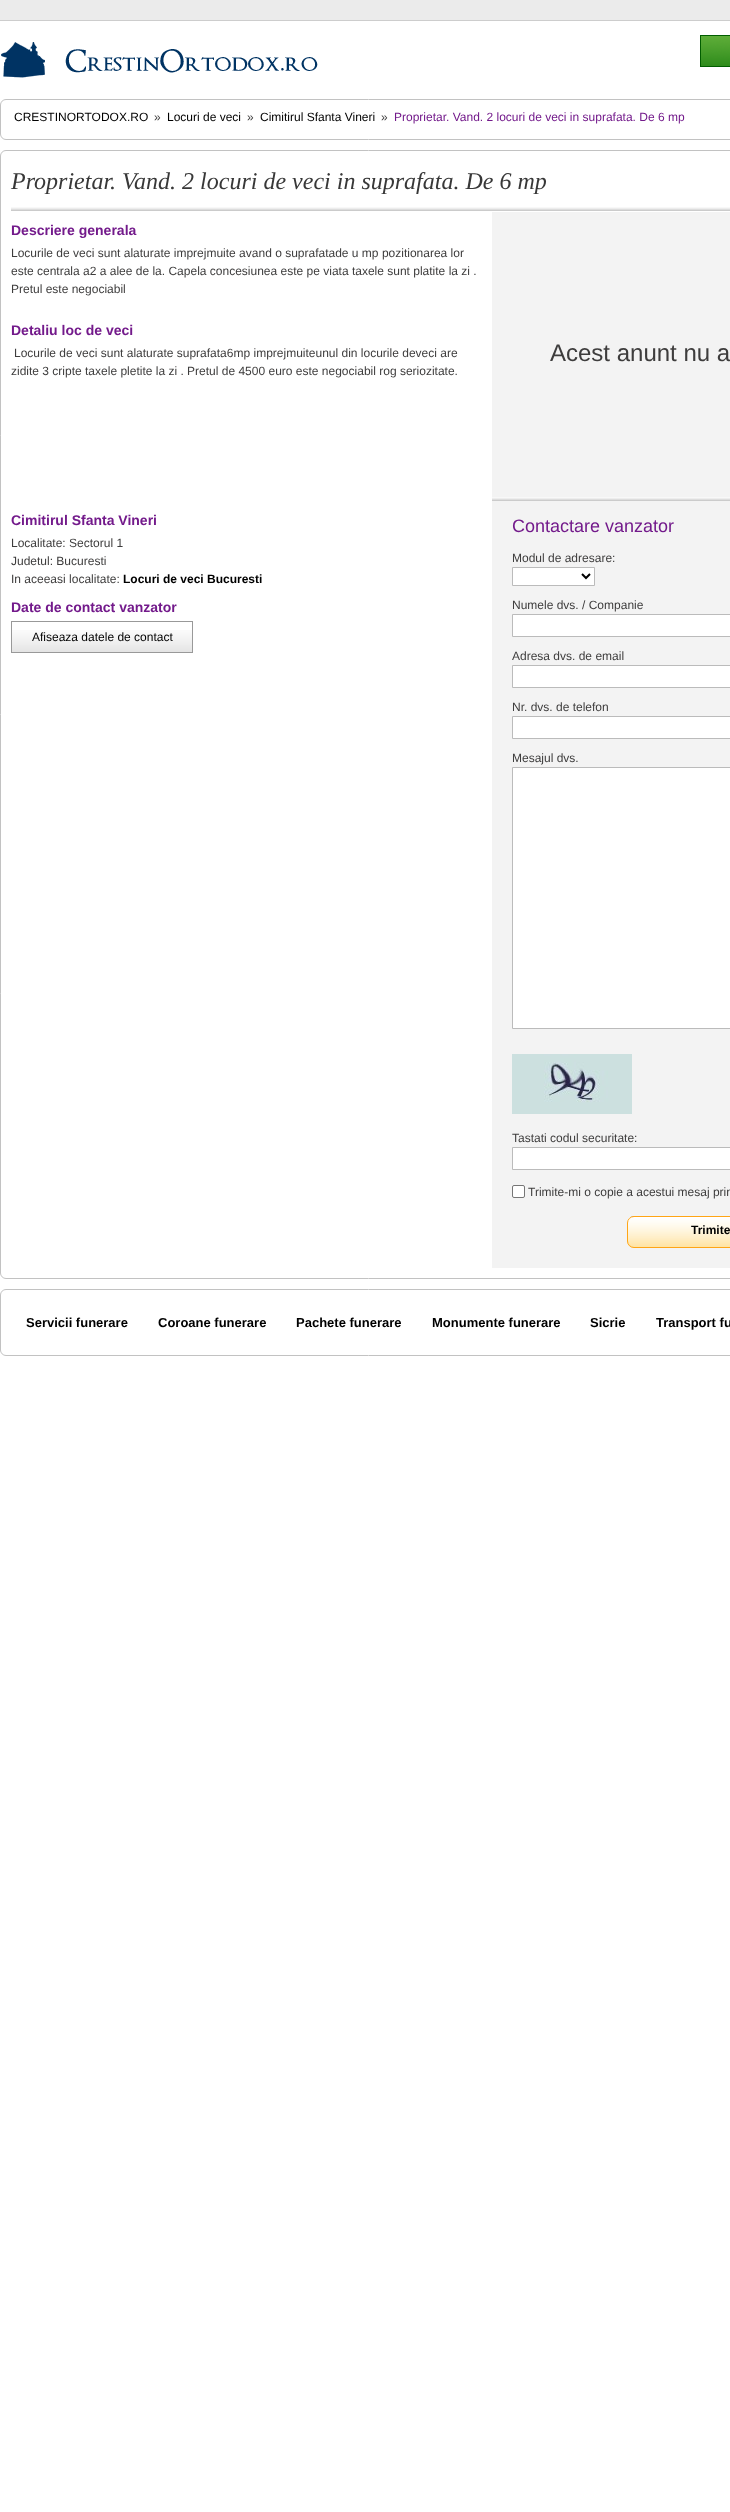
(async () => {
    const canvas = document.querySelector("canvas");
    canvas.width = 730;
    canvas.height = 2512;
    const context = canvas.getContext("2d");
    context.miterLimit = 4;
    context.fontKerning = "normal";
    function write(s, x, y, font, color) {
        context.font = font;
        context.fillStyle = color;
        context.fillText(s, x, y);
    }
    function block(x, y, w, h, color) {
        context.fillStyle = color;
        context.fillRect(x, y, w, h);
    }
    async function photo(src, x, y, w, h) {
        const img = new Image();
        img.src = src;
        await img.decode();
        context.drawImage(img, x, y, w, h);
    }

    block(0, 0, 730, 2512, "rgb(255, 255, 255)");
    block(0, 0, 730, 20, "rgb(235, 235, 235)");
    block(0, 20, 730, 1, "rgb(205, 205, 205)");
    await photo("media/1.png", 1, 42, 317, 36);
    await photo("media/2.png", 701, 36, 29, 30);
    context.strokeStyle = "rgb(1, 93, 0)";
    context.strokeRect(700.5, 35.5, 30, 31);
    context.beginPath();
    context.roundRect(0.5, 99.5, 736, 40, 5.5);
    context.strokeStyle = "rgb(194, 194, 194)";
    context.stroke();
    write("CRESTINORTODOX.RO", 14, 121, "12px Liberation Sans", "rgb(0, 0, 0)");
    write("»", 154, 121, "12px Liberation Sans", "rgb(62, 61, 61)");
    write("Locuri de veci", 167, 121, "12px Liberation Sans", "rgb(0, 0, 0)");
    write("»", 247, 121, "12px Liberation Sans", "rgb(62, 61, 61)");
    write("Cimitirul Sfanta Vineri", 260, 121, "12px Liberation Sans", "rgb(0, 0, 0)");
    write("»", 381, 121, "12px Liberation Sans", "rgb(62, 61, 61)");
    write("Proprietar. Vand. 2 locuri de veci in suprafata. De 6 mp", 394, 121, "12px Liberation Sans", "rgb(115, 26, 139)");
    context.beginPath();
    context.roundRect(0.5, 150.5, 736, 1128, 5.5);
    context.stroke();
    await photo("media/3.png", 11, 207, 719, 4);
    write("Proprietar. Vand. 2 locuri de veci in suprafata. De 6 mp", 11, 189, "italic 24px Liberation Serif", "rgb(56, 56, 56)");
    write("Descriere generala", 11, 235, "bold 14px Liberation Sans", "rgb(115, 26, 139)");
    write("Locurile de veci sunt alaturate imprejmuite avand o suprafatade u mp pozitionarea lor", 11, 257, "12px Liberation Sans", "rgb(62, 61, 61)");
    write("este centrala a2 a alee de la. Capela concesiunea este pe viata taxele sunt platite la zi .", 11, 275, "12px Liberation Sans", "rgb(62, 61, 61)");
    write("Pretul este negociabil", 11, 293, "12px Liberation Sans", "rgb(62, 61, 61)");
    write("Detaliu loc de veci", 11, 335, "bold 14px Liberation Sans", "rgb(115, 26, 139)");
    write("Locurile de veci sunt alaturate suprafata6mp imprejmuiteunul din locurile deveci are", 14, 357, "12px Liberation Sans", "rgb(62, 61, 61)");
    write("zidite 3 cripte taxele pletite la zi . Pretul de 4500 euro este negociabil rog seriozitate.", 11, 375, "12px Liberation Sans", "rgb(62, 61, 61)");
    write("Cimitirul Sfanta Vineri", 11, 525, "bold 14px Liberation Sans", "rgb(115, 26, 139)");
    write("Localitate: Sectorul 1", 11, 547, "12px Liberation Sans", "rgb(62, 61, 61)");
    write("Judetul: Bucuresti", 11, 565, "12px Liberation Sans", "rgb(62, 61, 61)");
    write("In aceeasi localitate:", 11, 583, "12px Liberation Sans", "rgb(62, 61, 61)");
    write("Locuri de veci Bucuresti", 123, 583, "bold 12px Liberation Sans", "rgb(0, 0, 0)");
    write("Date de contact vanzator", 11, 612, "bold 14px Liberation Sans", "rgb(115, 26, 139)");
    await photo("media/4.png", 12, 630, 180, 22);
    context.strokeStyle = "rgb(153, 153, 153)";
    context.strokeRect(11.5, 621.5, 181, 31);
    write("Afiseaza datele de contact", 32, 641, "12px Liberation Sans", "rgb(0, 0, 0)");
    block(492, 212, 238, 285, "rgb(243, 243, 243)");
    write("Acest anunt nu a", 550, 361, "24px Liberation Sans", "rgb(62, 61, 61)");
    block(492, 501, 238, 767, "rgb(243, 243, 243)");
    await photo("media/5.png", 492, 497, 238, 4);
    write("Contactare vanzator", 512, 532, "18px Liberation Sans", "rgb(115, 26, 139)");
    write("Modul de adresare:", 512, 562, "12px Liberation Sans", "rgb(62, 61, 61)");
    context.fillStyle = "rgb(255, 255, 255)";
    context.beginPath();
    context.rect(512.5, 567.5, 82, 18);
    context.fill();
    context.strokeStyle = "rgb(187, 187, 187)";
    context.stroke();
    context.beginPath();
    context.moveTo(582, 574);
    context.lineTo(586, 578);
    context.lineTo(590, 574);
    context.strokeStyle = "rgb(0, 0, 0)";
    context.lineWidth = 2;
    context.stroke();
    write("Numele dvs. / Companie", 512, 609, "12px Liberation Sans", "rgb(62, 61, 61)");
    context.fillStyle = "rgb(255, 255, 255)";
    context.beginPath();
    context.rect(512.5, 614.5, 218, 22);
    context.fill();
    context.strokeStyle = "rgb(187, 187, 187)";
    context.lineWidth = 1;
    context.stroke();
    write("Adresa dvs. de email", 512, 660, "12px Liberation Sans", "rgb(62, 61, 61)");
    context.fillStyle = "rgb(255, 255, 255)";
    context.beginPath();
    context.rect(512.5, 665.5, 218, 22);
    context.fill();
    context.stroke();
    write("Nr. dvs. de telefon", 512, 711, "12px Liberation Sans", "rgb(62, 61, 61)");
    context.fillStyle = "rgb(255, 255, 255)";
    context.beginPath();
    context.rect(512.5, 716.5, 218, 22);
    context.fill();
    context.stroke();
    write("Mesajul dvs.", 512, 762, "12px Liberation Sans", "rgb(62, 61, 61)");
    context.fillStyle = "rgb(255, 255, 255)";
    context.beginPath();
    context.rect(512.5, 767.5, 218, 261);
    context.fill();
    context.stroke();
    await photo("media/6.png", 512, 1054, 120, 60);
    write("Tastati codul securitate:", 512, 1142, "12px Liberation Sans", "rgb(62, 61, 61)");
    context.fillStyle = "rgb(255, 255, 255)";
    context.beginPath();
    context.rect(512.5, 1147.5, 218, 22);
    context.fill();
    context.stroke();
    context.beginPath();
    context.roundRect(512.5, 1185.5, 12, 12, 1.5);
    context.fill();
    context.strokeStyle = "rgb(118, 118, 118)";
    context.stroke();
    write("Trimite-mi o copie a acestui mesaj prin", 528, 1196, "12px Liberation Sans", "rgb(62, 61, 61)");
    await photo("media/7.png", 627, 1216, 103, 32);
    context.beginPath();
    context.roundRect(627.5, 1216.5, 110, 31, 6.5);
    context.strokeStyle = "rgb(255, 165, 22)";
    context.stroke();
    write("Trimite", 691, 1234, "bold 12px Liberation Sans", "rgb(0, 0, 0)");
    context.beginPath();
    context.roundRect(0.5, 1289.5, 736, 66, 5.5);
    context.strokeStyle = "rgb(194, 194, 194)";
    context.stroke();
    write("Servicii funerare", 26, 1327, "bold 13px Liberation Sans", "rgb(0, 0, 0)");
    write("Coroane funerare", 158, 1327, "bold 13px Liberation Sans", "rgb(0, 0, 0)");
    write("Pachete funerare", 296, 1327, "bold 13px Liberation Sans", "rgb(0, 0, 0)");
    write("Monumente funerare", 432, 1327, "bold 13px Liberation Sans", "rgb(0, 0, 0)");
    write("Sicrie", 590, 1327, "bold 13px Liberation Sans", "rgb(0, 0, 0)");
    write("Transport fu", 656, 1327, "bold 13px Liberation Sans", "rgb(0, 0, 0)");
})();
